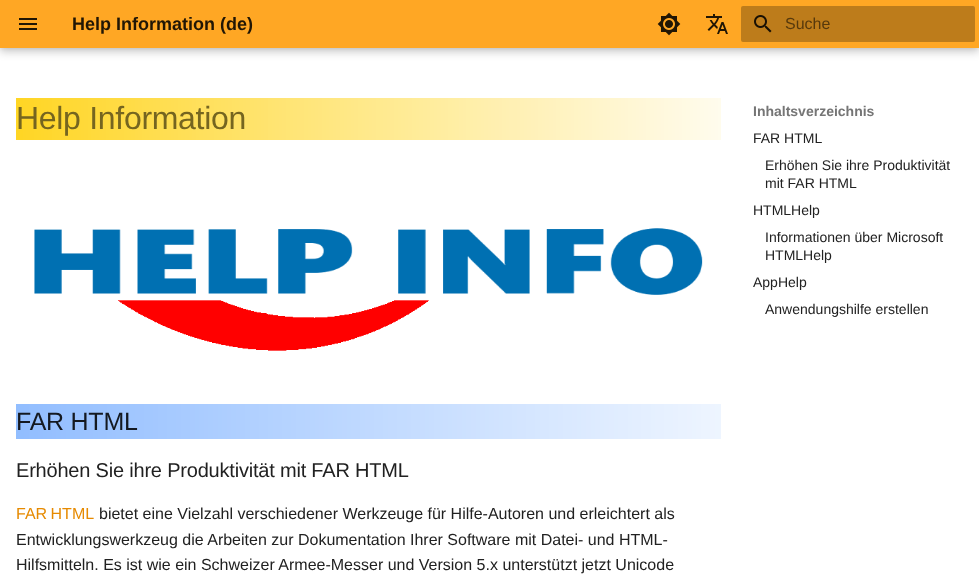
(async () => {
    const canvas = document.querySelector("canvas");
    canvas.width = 979;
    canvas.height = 586;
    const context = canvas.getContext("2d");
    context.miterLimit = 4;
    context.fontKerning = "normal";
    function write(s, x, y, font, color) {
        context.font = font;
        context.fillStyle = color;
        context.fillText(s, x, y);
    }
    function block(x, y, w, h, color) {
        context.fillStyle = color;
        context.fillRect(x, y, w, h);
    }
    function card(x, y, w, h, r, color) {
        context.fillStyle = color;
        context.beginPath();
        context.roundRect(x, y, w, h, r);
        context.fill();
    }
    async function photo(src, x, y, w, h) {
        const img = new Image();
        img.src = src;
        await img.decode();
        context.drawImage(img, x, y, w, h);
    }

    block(0, 0, 979, 586, "rgb(255, 255, 255)");
    context.fillStyle = "rgba(0, 0, 0, 0.2)";
    context.filter = "blur(4px)";
    context.beginPath();
    context.rect(0, 4, 979, 48);
    context.fill();
    context.filter = "none";
    context.fillStyle = "rgba(0, 0, 0, 0.1)";
    context.filter = "blur(2px)";
    context.beginPath();
    context.rect(0, 0, 979, 48);
    context.fill();
    context.filter = "none";
    block(0, 0, 979, 48, "rgb(255, 167, 36)");
    await photo("media/1.png", 19, 18, 18, 12);
    write("Help Information (de)", 72, 30, "bold 18px Liberation Sans", "rgb(33, 22, 5)");
    await photo("media/2.png", 657, 12, 24, 24);
    await photo("media/3.png", 706, 14, 22, 20);
    card(741, 6, 234, 36, 2, "rgb(189, 124, 27)");
    await photo("media/4.png", 754, 15, 18, 18);
    write("Suche", 785, 29, "16px Liberation Sans", "rgb(87, 57, 12)");
    await photo("media/5.png", 16, 98, 705, 42);
    context.letterSpacing = "-0.3px";
    write("Help Information", 16, 129, "32px Liberation Sans", "rgb(117, 101, 32)");
    await photo("media/6.png", 34, 228, 669, 123);
    await photo("media/7.png", 16, 404, 705, 35);
    context.letterSpacing = "-0.25px";
    write("FAR HTML", 16, 430, "25px Liberation Sans", "rgb(20, 25, 33)");
    context.letterSpacing = "-0.2px";
    write("Erhöhen Sie ihre Produktivität mit FAR HTML", 16, 477, "20px Liberation Sans", "rgb(33, 33, 33)");
    context.letterSpacing = "0px";
    context.wordSpacing = "-1px";
    write("FAR HTML", 16, 519, "16px Liberation Sans", "rgb(230, 138, 0)");
    context.wordSpacing = "0px";
    write("bietet eine Vielzahl verschiedener Werkzeuge für Hilfe-Autoren und erleichtert als", 99, 519, "16px Liberation Sans", "rgb(33, 33, 33)");
    write("Entwicklungswerkzeug die Arbeiten zur Dokumentation Ihrer Software mit Datei- und HTML-", 16, 545, "16px Liberation Sans", "rgb(33, 33, 33)");
    write("Hilfsmitteln. Es ist wie ein Schweizer Armee-Messer und Version 5.x unterstützt jetzt Unicode", 16, 570, "16px Liberation Sans", "rgb(33, 33, 33)");
    context.save();
    context.beginPath();
    context.rect(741, 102, 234, 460);
    context.clip();
    context.beginPath();
    context.moveTo(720, 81);
    context.lineTo(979, 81);
    context.lineTo(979, 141);
    context.lineTo(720, 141);
    context.closePath();
    context.moveTo(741, 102);
    context.lineTo(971, 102);
    context.lineTo(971, 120);
    context.lineTo(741, 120);
    context.closePath();
    context.clip("evenodd");
    context.fillStyle = "rgb(255, 255, 255)";
    context.filter = "blur(4px)";
    context.beginPath();
    context.rect(733, 94, 246, 34);
    context.fill();
    context.filter = "none";
    context.restore();
    write("Inhaltsverzeichnis", 753, 116, "bold 14px Liberation Sans", "rgb(117, 117, 117)");
    write("FAR HTML", 753, 143, "14px Liberation Sans", "rgb(33, 33, 33)");
    write("Erhöhen Sie ihre Produktivität", 765, 170, "14px Liberation Sans", "rgb(33, 33, 33)");
    write("mit FAR HTML", 765, 188, "14px Liberation Sans", "rgb(33, 33, 33)");
    write("HTMLHelp", 753, 215, "14px Liberation Sans", "rgb(33, 33, 33)");
    write("Informationen über Microsoft", 765, 242, "14px Liberation Sans", "rgb(33, 33, 33)");
    write("HTMLHelp", 765, 260, "14px Liberation Sans", "rgb(33, 33, 33)");
    write("AppHelp", 753, 287, "14px Liberation Sans", "rgb(33, 33, 33)");
    write("Anwendungshilfe erstellen", 765, 314, "14px Liberation Sans", "rgb(33, 33, 33)");
})();
